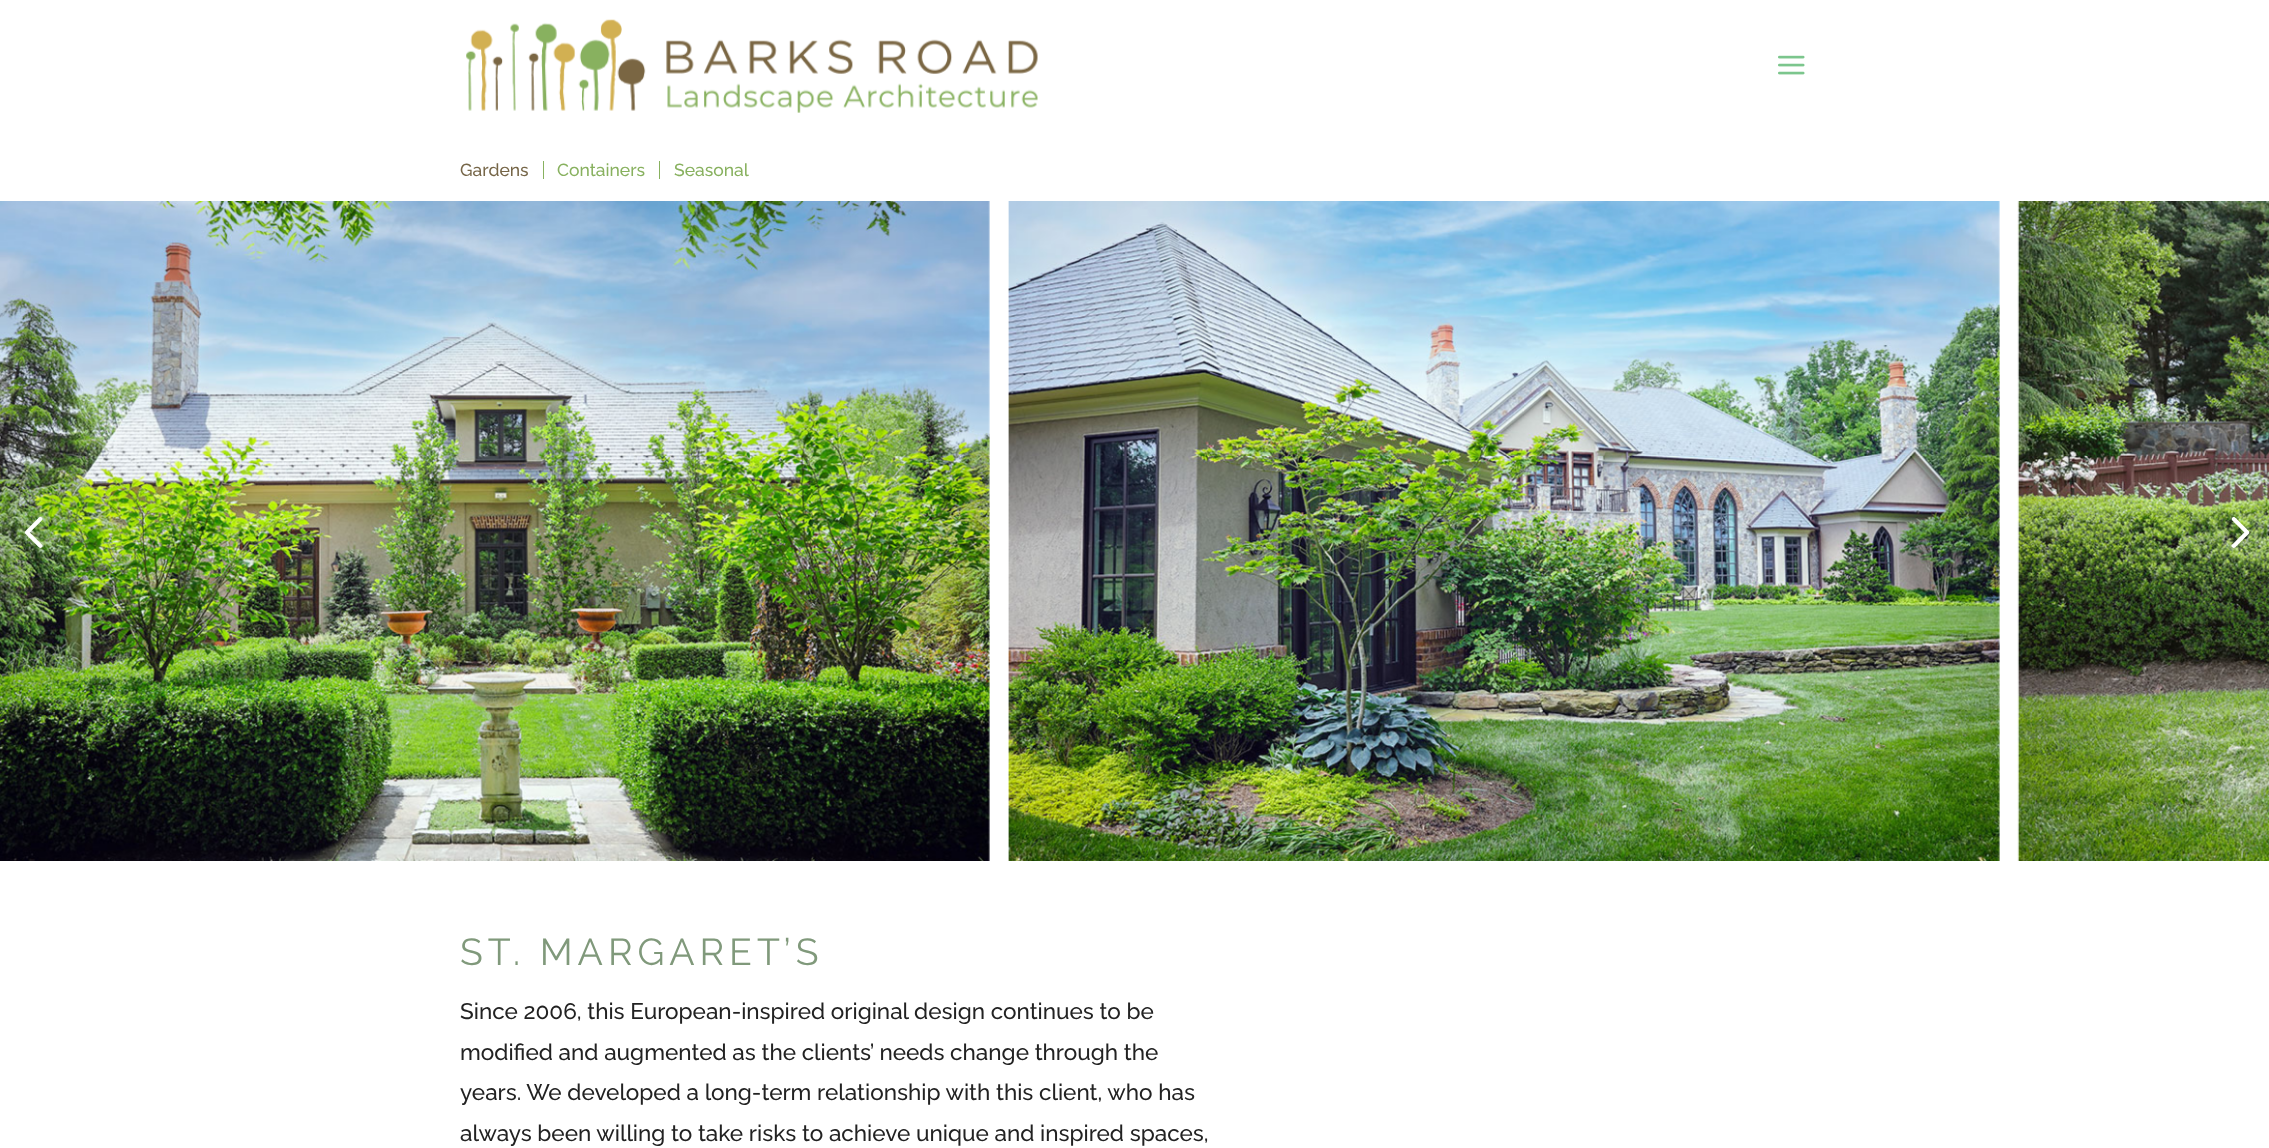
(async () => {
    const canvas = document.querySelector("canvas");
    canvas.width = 2269;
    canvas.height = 1148;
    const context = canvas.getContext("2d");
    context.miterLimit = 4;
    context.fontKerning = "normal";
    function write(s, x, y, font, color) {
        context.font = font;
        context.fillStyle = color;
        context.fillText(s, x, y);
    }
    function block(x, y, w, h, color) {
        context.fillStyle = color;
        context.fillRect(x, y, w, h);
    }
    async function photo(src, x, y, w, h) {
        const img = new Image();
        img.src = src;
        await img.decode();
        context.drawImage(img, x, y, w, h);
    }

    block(0, 0, 2269, 1148, "rgb(255, 255, 255)");
    await photo("media/1.png", 466, 19, 572, 94);
    await photo("media/2.png", 1778, 55, 27, 20);
    block(543, 161, 1, 18, "rgb(136, 177, 95)");
    write("Gardens", 460, 176, "100 17.5px 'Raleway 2'", "rgb(118, 102, 72)");
    block(659, 161, 1, 18, "rgb(136, 177, 95)");
    write("Containers", 557, 176, "100 17.5px 'Raleway 2'", "rgb(136, 177, 95)");
    write("Seasonal", 674, 176, "100 17.5px 'Raleway 2'", "rgb(136, 177, 95)");
    await photo("media/3.png", 0, 201, 990, 660);
    await photo("media/4.png", 1008, 201, 992, 660);
    await photo("media/5.png", 2017, 201, 252, 660);
    await photo("media/6.png", 24, 517, 19, 31);
    await photo("media/7.png", 2231, 516, 19, 32);
    context.letterSpacing = "5px";
    write("ST. MARGARET’S", 460, 965, "100 37.5px Raleway", "rgb(128, 153, 123)");
    context.letterSpacing = "0px";
    write("Since 2006, this European-inspired original design continues to be", 460, 1019, "100 22.5px 'Raleway 2'", "rgb(34, 34, 34)");
    write("modified and augmented as the clients’ needs change through the", 460, 1060, "100 22.5px 'Raleway 2'", "rgb(34, 34, 34)");
    write("years. We developed a long-term relationship with this client, who has", 460, 1100, "100 22.5px 'Raleway 2'", "rgb(34, 34, 34)");
    write("always been willing to take risks to achieve unique and inspired spaces,", 460, 1141, "100 22.5px 'Raleway 2'", "rgb(34, 34, 34)");
})();
